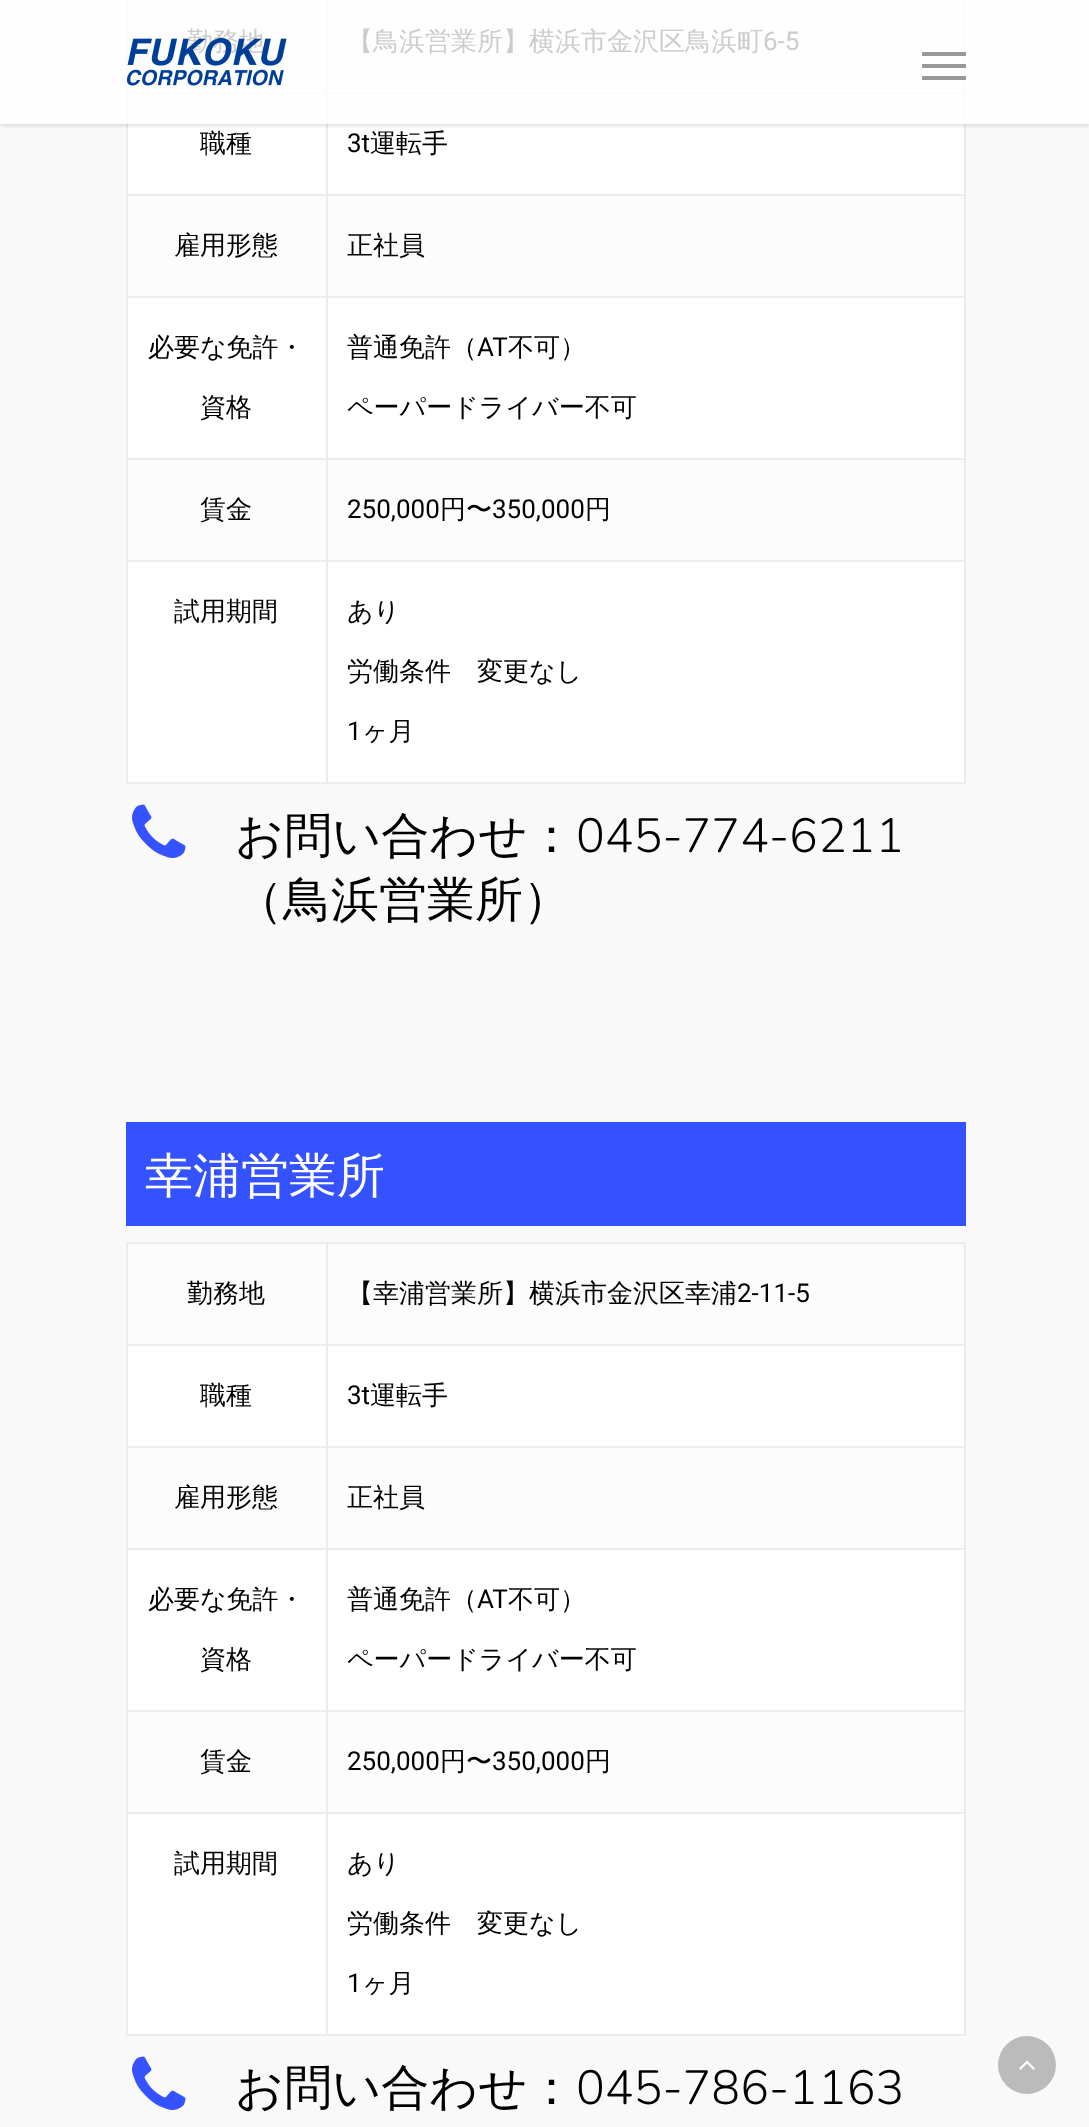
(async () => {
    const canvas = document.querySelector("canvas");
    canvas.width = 1089;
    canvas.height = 2127;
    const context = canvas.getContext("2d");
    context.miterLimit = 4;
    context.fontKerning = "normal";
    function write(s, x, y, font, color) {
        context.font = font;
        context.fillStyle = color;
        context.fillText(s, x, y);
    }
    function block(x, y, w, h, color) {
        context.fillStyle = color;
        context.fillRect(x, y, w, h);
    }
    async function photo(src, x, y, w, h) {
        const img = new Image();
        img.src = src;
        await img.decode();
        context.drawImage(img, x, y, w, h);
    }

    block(0, 0, 1089, 2127, "rgb(249, 249, 249)");
    block(0, 0, 1089, 124, "rgb(254, 254, 254)");
    block(128, 124, 836, 658, "rgb(255, 255, 255)");
    block(326, 92, 2, 32, "rgb(251, 251, 251)");
    block(964, 0, 2, 124, "rgb(251, 251, 251)");
    block(326, 92, 640, 2, "rgb(251, 251, 251)");
    block(326, 0, 2, 94, "rgb(251, 251, 251)");
    block(126, 92, 2, 32, "rgb(251, 251, 251)");
    block(126, 92, 202, 2, "rgb(251, 251, 251)");
    block(126, 0, 2, 94, "rgb(251, 251, 251)");
    block(128, 196, 836, 100, "rgb(252, 252, 252)");
    block(128, 460, 836, 100, "rgb(252, 252, 252)");
    block(964, 124, 2, 660, "rgb(236, 236, 236)");
    block(326, 782, 640, 2, "rgb(236, 236, 236)");
    block(326, 560, 2, 224, "rgb(236, 236, 236)");
    block(326, 560, 640, 2, "rgb(236, 236, 236)");
    block(326, 458, 2, 104, "rgb(236, 236, 236)");
    block(326, 458, 640, 2, "rgb(236, 236, 236)");
    block(326, 296, 2, 164, "rgb(236, 236, 236)");
    block(326, 296, 640, 2, "rgb(236, 236, 236)");
    block(326, 194, 2, 104, "rgb(236, 236, 236)");
    block(326, 194, 640, 2, "rgb(236, 236, 236)");
    block(326, 124, 2, 72, "rgb(236, 236, 236)");
    block(126, 782, 202, 2, "rgb(236, 236, 236)");
    block(126, 560, 2, 224, "rgb(236, 236, 236)");
    block(126, 560, 202, 2, "rgb(236, 236, 236)");
    block(126, 458, 2, 104, "rgb(236, 236, 236)");
    block(126, 458, 202, 2, "rgb(236, 236, 236)");
    block(126, 296, 2, 164, "rgb(236, 236, 236)");
    block(126, 296, 202, 2, "rgb(236, 236, 236)");
    block(126, 194, 2, 104, "rgb(236, 236, 236)");
    block(126, 194, 202, 2, "rgb(236, 236, 236)");
    block(126, 124, 2, 72, "rgb(236, 236, 236)");
    context.save();
    context.beginPath();
    context.rect(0, 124, 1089, 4);
    context.clip();
    context.fillStyle = "rgba(0, 0, 0, 0.22)";
    context.filter = "blur(3px)";
    context.beginPath();
    context.rect(0, 0, 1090, 124);
    context.fill();
    context.filter = "none";
    context.restore();
    write("勤務地", 187, 50, "500 26px WenQuanYi Zen Hei", "rgb(204, 204, 204)");
    await photo("media/1.png", 127, 38, 160, 48);
    block(922, 52, 44, 4, "rgb(153, 153, 153)");
    block(922, 76, 44, 4, "rgb(153, 153, 153)");
    block(922, 64, 44, 4, "rgb(153, 153, 153)");
    write("【鳥浜営業所】横浜市金沢区鳥浜町", 347, 50, "500 26px WenQuanYi Zen Hei", "rgb(204, 204, 204)");
    write("6-5", 763, 50, "26px Roboto", "rgb(204, 204, 204)");
    write("職種", 200, 152, "500 26px WenQuanYi Zen Hei", "rgb(0, 0, 0)");
    write("3t", 347, 152, "26px Roboto", "rgb(0, 0, 0)");
    write("運転手", 370, 152, "500 26px WenQuanYi Zen Hei", "rgb(0, 0, 0)");
    write("雇用形態", 174, 254, "500 26px WenQuanYi Zen Hei", "rgb(0, 0, 0)");
    write("正社員", 347, 254, "500 26px WenQuanYi Zen Hei", "rgb(0, 0, 0)");
    write("必要な免許・", 148, 356, "500 26px WenQuanYi Zen Hei", "rgb(0, 0, 0)");
    write("資格", 200, 416, "500 26px WenQuanYi Zen Hei", "rgb(0, 0, 0)");
    write("普通免許（", 347, 356, "500 26px WenQuanYi Zen Hei", "rgb(0, 0, 0)");
    write("AT", 477, 356, "26px Roboto", "rgb(0, 0, 0)");
    write("不可）", 508, 356, "500 26px WenQuanYi Zen Hei", "rgb(0, 0, 0)");
    write("ペーパードライバー不可", 347, 416, "500 26px WenQuanYi Zen Hei", "rgb(0, 0, 0)");
    write("賃金", 200, 518, "500 26px WenQuanYi Zen Hei", "rgb(0, 0, 0)");
    write("250,000", 347, 518, "26px Roboto", "rgb(0, 0, 0)");
    write("円〜", 440, 518, "500 26px WenQuanYi Zen Hei", "rgb(0, 0, 0)");
    write("350,000", 492, 518, "26px Roboto", "rgb(0, 0, 0)");
    write("円", 585, 518, "500 26px WenQuanYi Zen Hei", "rgb(0, 0, 0)");
    write("試用期間", 174, 620, "500 26px WenQuanYi Zen Hei", "rgb(0, 0, 0)");
    write("あり", 347, 620, "500 26px WenQuanYi Zen Hei", "rgb(0, 0, 0)");
    write("労働条件　変更なし", 347, 680, "500 26px WenQuanYi Zen Hei", "rgb(0, 0, 0)");
    write("1", 347, 740, "26px Roboto", "rgb(0, 0, 0)");
    write("ヶ月", 362, 740, "500 26px WenQuanYi Zen Hei", "rgb(0, 0, 0)");
    await photo("media/2.png", 132, 804, 54, 54);
    write("お問い合わせ：", 235, 852, "500 48px WenQuanYi Zen Hei", "rgb(0, 0, 0)");
    write("045-774-6211", 576, 852, "300 48px Nunito", "rgb(0, 0, 0)");
    write("（鳥浜営業所）", 235, 916, "500 48px WenQuanYi Zen Hei", "rgb(0, 0, 0)");
    block(126, 1122, 840, 104, "rgb(52, 82, 255)");
    write("幸浦営業所", 145, 1192, "500 48px WenQuanYi Zen Hei", "rgb(255, 255, 255)");
    block(128, 1346, 836, 688, "rgb(255, 255, 255)");
    block(126, 1242, 840, 2, "rgb(236, 236, 236)");
    block(128, 1244, 836, 100, "rgb(252, 252, 252)");
    block(128, 1448, 836, 100, "rgb(252, 252, 252)");
    block(128, 1712, 836, 100, "rgb(252, 252, 252)");
    block(964, 1242, 2, 794, "rgb(236, 236, 236)");
    block(326, 2034, 640, 2, "rgb(236, 236, 236)");
    block(326, 1812, 2, 224, "rgb(236, 236, 236)");
    block(326, 1812, 640, 2, "rgb(236, 236, 236)");
    block(326, 1710, 2, 104, "rgb(236, 236, 236)");
    block(326, 1710, 640, 2, "rgb(236, 236, 236)");
    block(326, 1548, 2, 164, "rgb(236, 236, 236)");
    block(326, 1548, 640, 2, "rgb(236, 236, 236)");
    block(326, 1446, 2, 104, "rgb(236, 236, 236)");
    block(326, 1446, 640, 2, "rgb(236, 236, 236)");
    block(326, 1344, 2, 104, "rgb(236, 236, 236)");
    block(326, 1344, 640, 2, "rgb(236, 236, 236)");
    block(326, 1242, 2, 104, "rgb(236, 236, 236)");
    block(126, 2034, 202, 2, "rgb(236, 236, 236)");
    block(126, 1812, 2, 224, "rgb(236, 236, 236)");
    block(126, 1812, 202, 2, "rgb(236, 236, 236)");
    block(126, 1710, 2, 104, "rgb(236, 236, 236)");
    block(126, 1710, 202, 2, "rgb(236, 236, 236)");
    block(126, 1548, 2, 164, "rgb(236, 236, 236)");
    block(126, 1548, 202, 2, "rgb(236, 236, 236)");
    block(126, 1446, 2, 104, "rgb(236, 236, 236)");
    block(126, 1446, 202, 2, "rgb(236, 236, 236)");
    block(126, 1344, 2, 104, "rgb(236, 236, 236)");
    block(126, 1344, 202, 2, "rgb(236, 236, 236)");
    block(126, 1242, 2, 104, "rgb(236, 236, 236)");
    write("勤務地", 187, 1302, "500 26px WenQuanYi Zen Hei", "rgb(0, 0, 0)");
    write("【幸浦営業所】横浜市金沢区幸浦", 347, 1302, "500 26px WenQuanYi Zen Hei", "rgb(0, 0, 0)");
    write("2-11-5", 737, 1302, "26px Roboto", "rgb(0, 0, 0)");
    write("職種", 200, 1404, "500 26px WenQuanYi Zen Hei", "rgb(0, 0, 0)");
    write("3t", 347, 1404, "26px Roboto", "rgb(0, 0, 0)");
    write("運転手", 370, 1404, "500 26px WenQuanYi Zen Hei", "rgb(0, 0, 0)");
    write("雇用形態", 174, 1506, "500 26px WenQuanYi Zen Hei", "rgb(0, 0, 0)");
    write("正社員", 347, 1506, "500 26px WenQuanYi Zen Hei", "rgb(0, 0, 0)");
    write("必要な免許・", 148, 1608, "500 26px WenQuanYi Zen Hei", "rgb(0, 0, 0)");
    write("資格", 200, 1668, "500 26px WenQuanYi Zen Hei", "rgb(0, 0, 0)");
    write("普通免許（", 347, 1608, "500 26px WenQuanYi Zen Hei", "rgb(0, 0, 0)");
    write("AT", 477, 1608, "26px Roboto", "rgb(0, 0, 0)");
    write("不可）", 508, 1608, "500 26px WenQuanYi Zen Hei", "rgb(0, 0, 0)");
    write("ペーパードライバー不可", 347, 1668, "500 26px WenQuanYi Zen Hei", "rgb(0, 0, 0)");
    write("賃金", 200, 1770, "500 26px WenQuanYi Zen Hei", "rgb(0, 0, 0)");
    write("250,000", 347, 1770, "26px Roboto", "rgb(0, 0, 0)");
    write("円〜", 440, 1770, "500 26px WenQuanYi Zen Hei", "rgb(0, 0, 0)");
    write("350,000", 492, 1770, "26px Roboto", "rgb(0, 0, 0)");
    write("円", 585, 1770, "500 26px WenQuanYi Zen Hei", "rgb(0, 0, 0)");
    write("試用期間", 174, 1872, "500 26px WenQuanYi Zen Hei", "rgb(0, 0, 0)");
    write("あり", 347, 1872, "500 26px WenQuanYi Zen Hei", "rgb(0, 0, 0)");
    write("労働条件　変更なし", 347, 1932, "500 26px WenQuanYi Zen Hei", "rgb(0, 0, 0)");
    write("1", 347, 1992, "26px Roboto", "rgb(0, 0, 0)");
    write("ヶ月", 362, 1992, "500 26px WenQuanYi Zen Hei", "rgb(0, 0, 0)");
    await photo("media/2.png", 132, 2056, 54, 54);
    write("お問い合わせ：", 235, 2104, "500 48px WenQuanYi Zen Hei", "rgb(0, 0, 0)");
    write("045-786-1163", 576, 2104, "300 48px Nunito", "rgb(0, 0, 0)");
    context.fillStyle = "rgb(187, 187, 187)";
    context.beginPath();
    context.arc(1027, 2065, 29, 0, Math.PI * 2);
    context.fill();
    await photo("media/3.png", 1019, 2060, 16, 10);
})();
